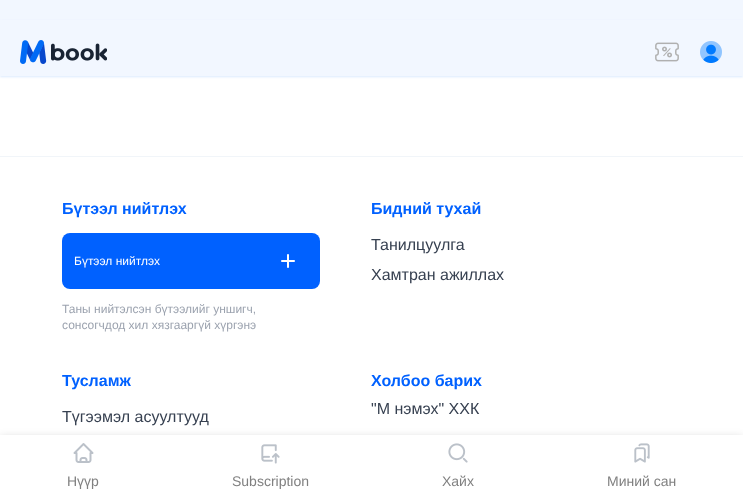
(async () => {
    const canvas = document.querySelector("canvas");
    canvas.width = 743;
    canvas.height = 499;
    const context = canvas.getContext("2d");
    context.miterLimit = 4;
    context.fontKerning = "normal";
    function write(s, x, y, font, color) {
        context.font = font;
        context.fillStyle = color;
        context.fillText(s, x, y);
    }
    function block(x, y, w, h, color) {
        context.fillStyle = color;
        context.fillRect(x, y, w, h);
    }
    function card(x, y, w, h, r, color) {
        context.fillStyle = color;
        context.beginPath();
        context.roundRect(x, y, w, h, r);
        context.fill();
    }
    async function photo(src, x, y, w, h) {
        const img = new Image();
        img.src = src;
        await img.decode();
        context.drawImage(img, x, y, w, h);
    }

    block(0, 0, 743, 499, "rgb(255, 255, 255)");
    block(0, 156, 743, 1, "rgb(241, 245, 249)");
    write("Бүтээл нийтлэх", 62, 214, "bold 16px Liberation Sans", "rgb(0, 97, 255)");
    card(62, 233, 258, 56, 8, "rgb(0, 97, 255)");
    write("Бүтээл нийтлэх", 74, 265, "12px Liberation Sans", "rgb(255, 255, 255)");
    await photo("media/1.png", 281, 254, 14, 14);
    write("Таны нийтэлсэн бүтээлийг уншигч,", 62, 313, "12px Liberation Sans", "rgb(156, 163, 175)");
    write("сонсогчдод хил хязгааргүй хүргэнэ", 62, 329, "12px Liberation Sans", "rgb(156, 163, 175)");
    write("Бидний тухай", 371, 214, "bold 16px Liberation Sans", "rgb(0, 97, 255)");
    write("Танилцуулга", 371, 250, "16px Liberation Sans", "rgb(55, 65, 81)");
    write("Хамтран ажиллах", 371, 280, "16px Liberation Sans", "rgb(55, 65, 81)");
    write("Тусламж", 62, 386, "bold 16px Liberation Sans", "rgb(0, 97, 255)");
    write("Түгээмэл асуултууд", 62, 422, "16px Liberation Sans", "rgb(55, 65, 81)");
    write("Холбоо барих", 371, 386, "bold 16px Liberation Sans", "rgb(0, 97, 255)");
    write("\"М нэмэх\" ХХК", 371, 414, "16px Liberation Sans", "rgb(55, 65, 81)");
    block(0, 0, 743, 76, "rgb(242, 247, 255)");
    context.save();
    context.beginPath();
    context.moveTo(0, 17);
    context.lineTo(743, 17);
    context.lineTo(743, 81);
    context.lineTo(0, 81);
    context.closePath();
    context.moveTo(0, 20);
    context.lineTo(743, 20);
    context.lineTo(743, 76);
    context.lineTo(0, 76);
    context.closePath();
    context.clip("evenodd");
    context.fillStyle = "rgb(219, 234, 254)";
    context.filter = "blur(1px)";
    context.beginPath();
    context.rect(0, 21, 743, 56);
    context.fill();
    context.filter = "none";
    context.restore();
    await photo("media/2.png", 20, 40, 87, 24);
    await photo("media/3.png", 655, 42, 24, 20);
    await photo("media/4.png", 700, 41, 22, 22);
    context.fillStyle = "rgba(0, 0, 0, 0.2)";
    context.filter = "blur(5px)";
    context.beginPath();
    context.rect(0, 438, 743, 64);
    context.fill();
    context.filter = "none";
    block(0, 435, 743, 64, "rgb(255, 255, 255)");
    await photo("media/5.png", 73, 443, 21, 20);
    write("Нүүр", 67, 486, "14px Liberation Sans", "rgb(128, 128, 128)");
    await photo("media/6.png", 261, 444, 19, 20);
    write("Subscription", 232, 486, "14px Liberation Sans", "rgb(128, 128, 128)");
    await photo("media/7.png", 448, 443, 20, 20);
    write("Хайх", 442, 486, "14px Liberation Sans", "rgb(128, 128, 128)");
    await photo("media/8.png", 634, 443, 16, 20);
    write("Миний сан", 607, 486, "14px Liberation Sans", "rgb(128, 128, 128)");
})();
